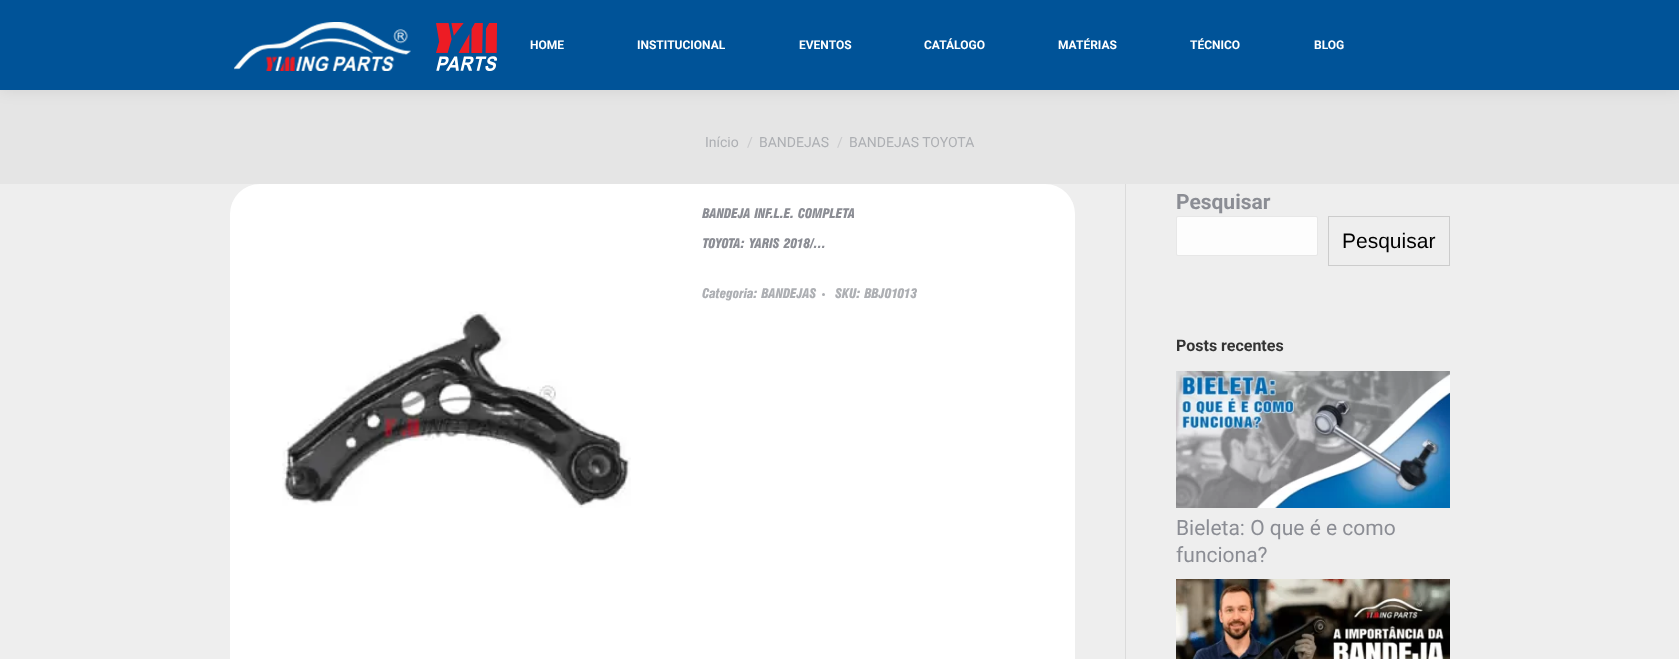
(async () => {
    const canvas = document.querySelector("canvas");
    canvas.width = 1679;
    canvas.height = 659;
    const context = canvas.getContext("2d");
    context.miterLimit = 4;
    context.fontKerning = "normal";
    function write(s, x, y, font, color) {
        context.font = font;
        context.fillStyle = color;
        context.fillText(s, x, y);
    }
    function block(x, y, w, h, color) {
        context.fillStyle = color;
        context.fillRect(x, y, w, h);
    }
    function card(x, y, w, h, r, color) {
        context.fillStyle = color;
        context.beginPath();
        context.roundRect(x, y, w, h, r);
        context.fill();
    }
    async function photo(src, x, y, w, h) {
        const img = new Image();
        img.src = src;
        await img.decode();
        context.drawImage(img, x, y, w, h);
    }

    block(0, 0, 1679, 659, "rgb(238, 238, 238)");
    block(0, 90, 1679, 94, "rgb(229, 229, 229)");
    context.fillStyle = "rgba(0, 0, 0, 0.07)";
    context.filter = "blur(7.5px)";
    context.beginPath();
    context.rect(-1, -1, 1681, 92);
    context.fill();
    context.filter = "none";
    block(0, 0, 1679, 90, "rgb(0, 83, 152)");
    await photo("media/1.png", 234, 22, 263, 49);
    write("HOME", 530, 49, "bold 12px Roboto", "rgb(255, 255, 255)");
    write("INSTITUCIONAL", 637, 49, "bold 12px Roboto", "rgb(255, 255, 255)");
    write("EVENTOS", 799, 49, "bold 12px Roboto", "rgb(255, 255, 255)");
    write("CATÁLOGO", 924, 49, "bold 12px Roboto", "rgb(255, 255, 255)");
    write("MATÉRIAS", 1058, 49, "bold 12px Roboto", "rgb(255, 255, 255)");
    write("TÉCNICO", 1190, 49, "bold 12px Roboto", "rgb(255, 255, 255)");
    write("BLOG", 1314, 49, "bold 12px Roboto", "rgb(255, 255, 255)");
    write("Início", 705, 147, "14px Roboto", "rgb(173, 175, 179)");
    write("/", 747, 147, "14px Roboto", "rgb(201, 202, 204)");
    write("BANDEJAS", 759, 147, "14px Roboto", "rgb(173, 175, 179)");
    write("/", 837, 147, "14px Roboto", "rgb(201, 202, 204)");
    write("BANDEJAS TOYOTA", 849, 147, "14px Roboto", "rgb(173, 175, 179)");
    card(230, 184, 845, 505, 30, "rgb(255, 255, 255)");
    write("BANDEJA INF.L.E. COMPLETA", 702, 218, "italic 900 13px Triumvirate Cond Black", "rgb(139, 141, 148)");
    write("TOYOTA: YARIS 2018/…", 702, 248, "italic 900 13px Triumvirate Cond Black", "rgb(139, 141, 148)");
    write("Categoria: BANDEJAS", 702, 298, "italic 900 13px Triumvirate Cond Black", "rgb(173, 175, 179)");
    context.beginPath();
    context.arc(823.5, 294.5, 1.5, 0, Math.PI * 2);
    context.fill();
    write("SKU: BBJ01013", 835, 298, "italic 900 13px Triumvirate Cond Black", "rgb(173, 175, 179)");
    await photo("media/2.png", 282, 311, 349, 197);
    block(1125, 184, 1, 475, "rgb(219, 219, 219)");
    write("Pesquisar", 1176, 209, "bold 21px Roboto", "rgb(139, 141, 148)");
    context.fillStyle = "rgb(253, 253, 253)";
    context.beginPath();
    context.roundRect(1176.5, 216.5, 141, 39, 1.5);
    context.fill();
    context.strokeStyle = "rgb(231, 231, 231)";
    context.stroke();
    context.strokeStyle = "rgb(204, 204, 204)";
    context.strokeRect(1328.5, 216.5, 121, 49);
    write("Pesquisar", 1342, 248, "21px Liberation Sans", "rgb(0, 0, 0)");
    write("Posts recentes", 1176, 351, "bold 16px Roboto", "rgb(51, 51, 51)");
    await photo("media/3.png", 1176, 371, 274, 137);
    write("Bieleta: O que é e como", 1176, 535, "21px Roboto", "rgb(139, 141, 148)");
    write("funciona?", 1176, 562, "21px Roboto", "rgb(139, 141, 148)");
    await photo("media/4.png", 1176, 579, 274, 80);
})();
